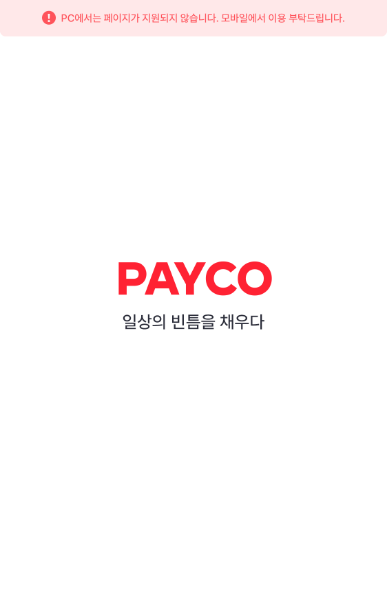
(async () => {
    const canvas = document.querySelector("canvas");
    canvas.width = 387;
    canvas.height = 606;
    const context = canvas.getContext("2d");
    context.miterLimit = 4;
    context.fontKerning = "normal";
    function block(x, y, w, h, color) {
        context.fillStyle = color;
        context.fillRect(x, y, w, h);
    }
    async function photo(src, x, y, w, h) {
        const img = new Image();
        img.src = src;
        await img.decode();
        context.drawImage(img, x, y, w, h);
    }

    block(0, 0, 387, 606, "rgb(255, 255, 255)");
    await photo("media/1.png", 0, 0, 387, 330);
})();
